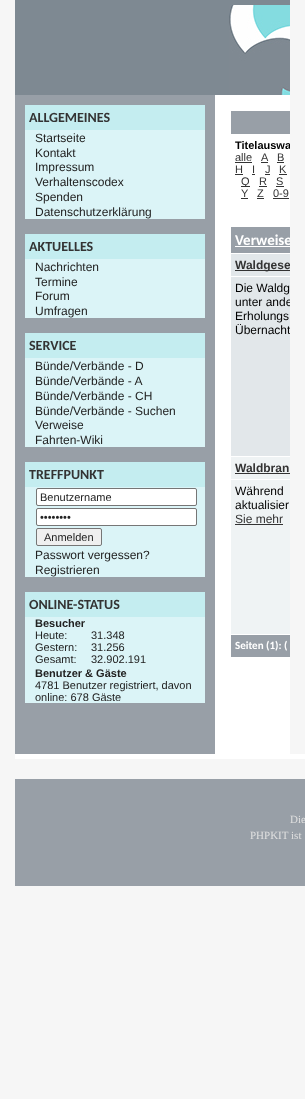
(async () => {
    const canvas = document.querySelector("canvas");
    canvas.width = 305;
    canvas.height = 1099;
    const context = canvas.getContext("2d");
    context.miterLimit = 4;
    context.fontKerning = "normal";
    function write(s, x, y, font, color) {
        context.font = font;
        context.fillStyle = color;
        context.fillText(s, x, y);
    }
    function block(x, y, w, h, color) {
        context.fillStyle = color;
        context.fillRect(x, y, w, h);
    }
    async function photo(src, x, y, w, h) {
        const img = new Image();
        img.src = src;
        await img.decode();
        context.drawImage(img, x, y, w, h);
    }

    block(0, 0, 305, 1099, "rgb(246, 246, 246)");
    block(15, 0, 275, 95, "rgb(126, 137, 146)");
    await photo("media/1.png", 229, 5, 61, 90);
    block(15, 95, 200, 659, "rgb(152, 159, 167)");
    block(25, 105, 180, 25, "rgb(196, 237, 240)");
    write("ALLGEMEINES", 29, 122, "bold 14px Carlito", "rgb(51, 51, 51)");
    block(25, 130, 180, 89, "rgb(219, 244, 247)");
    write("Startseite", 35, 142, "12px Liberation Sans", "rgb(34, 34, 34)");
    write("Kontakt", 35, 157, "12px Liberation Sans", "rgb(34, 34, 34)");
    write("Impressum", 35, 171, "12px Liberation Sans", "rgb(34, 34, 34)");
    write("Verhaltenscodex", 35, 186, "12px Liberation Sans", "rgb(34, 34, 34)");
    write("Spenden", 35, 201, "12px Liberation Sans", "rgb(34, 34, 34)");
    write("Datenschutzerklärung", 35, 216, "12px Liberation Sans", "rgb(34, 34, 34)");
    block(25, 234, 180, 25, "rgb(196, 237, 240)");
    write("AKTUELLES", 29, 251, "bold 14px Carlito", "rgb(51, 51, 51)");
    block(25, 259, 180, 59, "rgb(219, 244, 247)");
    write("Nachrichten", 35, 271, "12px Liberation Sans", "rgb(34, 34, 34)");
    write("Termine", 35, 286, "12px Liberation Sans", "rgb(34, 34, 34)");
    write("Forum", 35, 300, "12px Liberation Sans", "rgb(34, 34, 34)");
    write("Umfragen", 35, 315, "12px Liberation Sans", "rgb(34, 34, 34)");
    block(25, 333, 180, 25, "rgb(196, 237, 240)");
    write("SERVICE", 29, 350, "bold 14px Carlito", "rgb(51, 51, 51)");
    block(25, 358, 180, 89, "rgb(219, 244, 247)");
    write("Bünde/Verbände - D", 35, 370, "12px Liberation Sans", "rgb(34, 34, 34)");
    write("Bünde/Verbände - A", 35, 385, "12px Liberation Sans", "rgb(34, 34, 34)");
    write("Bünde/Verbände - CH", 35, 400, "12px Liberation Sans", "rgb(34, 34, 34)");
    write("Bünde/Verbände - Suchen", 35, 415, "12px Liberation Sans", "rgb(34, 34, 34)");
    write("Verweise", 35, 429, "12px Liberation Sans", "rgb(34, 34, 34)");
    write("Fahrten-Wiki", 35, 444, "12px Liberation Sans", "rgb(34, 34, 34)");
    block(25, 462, 180, 25, "rgb(196, 237, 240)");
    write("TREFFPUNKT", 29, 479, "bold 14px Carlito", "rgb(51, 51, 51)");
    block(25, 487, 180, 90, "rgb(219, 244, 247)");
    context.fillStyle = "rgb(255, 255, 255)";
    context.beginPath();
    context.roundRect(36.5, 488.5, 160, 17, 1.5);
    context.fill();
    context.strokeStyle = "rgb(118, 118, 118)";
    context.stroke();
    write("Benutzername", 40, 501, "11px Liberation Sans", "rgb(34, 34, 34)");
    context.fillStyle = "rgb(255, 255, 255)";
    context.beginPath();
    context.roundRect(36.5, 508.5, 160, 17, 1.5);
    context.fill();
    context.stroke();
    write("••••••••", 40, 521, "11px Liberation Sans", "rgb(34, 34, 34)");
    context.fillStyle = "rgb(239, 239, 239)";
    context.beginPath();
    context.roundRect(36.5, 528.5, 65, 17, 1.5);
    context.fill();
    context.stroke();
    write("Anmelden", 44, 541, "11px Liberation Sans", "rgb(34, 34, 34)");
    write("Passwort vergessen?", 35, 559, "12px Liberation Sans", "rgb(34, 34, 34)");
    write("Registrieren", 35, 574, "12px Liberation Sans", "rgb(34, 34, 34)");
    block(25, 592, 180, 25, "rgb(196, 237, 240)");
    write("ONLINE-STATUS", 29, 609, "bold 14px Carlito", "rgb(51, 51, 51)");
    block(25, 617, 180, 86, "rgb(219, 244, 247)");
    write("Besucher", 35, 627, "bold 11px Liberation Sans", "rgb(34, 34, 34)");
    write("Heute:", 35, 639, "11px Liberation Sans", "rgb(34, 34, 34)");
    write("31.348", 91, 639, "11px Liberation Sans", "rgb(34, 34, 34)");
    write("Gestern:", 35, 651, "11px Liberation Sans", "rgb(34, 34, 34)");
    write("31.256", 91, 651, "11px Liberation Sans", "rgb(34, 34, 34)");
    write("Gesamt:", 35, 663, "11px Liberation Sans", "rgb(34, 34, 34)");
    write("32.902.191", 91, 663, "11px Liberation Sans", "rgb(34, 34, 34)");
    write("Benutzer & Gäste", 35, 677, "bold 11px Liberation Sans", "rgb(34, 34, 34)");
    write("4781 Benutzer registriert, davon", 35, 689, "11px Liberation Sans", "rgb(34, 34, 34)");
    write("online: 678 Gäste", 35, 701, "11px Liberation Sans", "rgb(34, 34, 34)");
    block(215, 95, 75, 659, "rgb(255, 255, 255)");
    block(231, 111, 59, 23, "rgb(152, 159, 167)");
    context.save();
    context.beginPath();
    context.rect(15, 0, 275, 754);
    context.clip();
    write("Titelauswa", 235, 149, "bold 11px Liberation Sans", "rgb(0, 0, 0)");
    context.restore();
    write("alle", 235, 161, "11px Liberation Sans", "rgb(51, 51, 51)");
    block(235, 162, 17, 1, "rgb(51, 51, 51)");
    write("A", 261, 161, "11px Liberation Sans", "rgb(51, 51, 51)");
    block(261, 162, 7, 1, "rgb(51, 51, 51)");
    write("B", 277, 161, "11px Liberation Sans", "rgb(51, 51, 51)");
    block(277, 162, 7, 1, "rgb(51, 51, 51)");
    write("H", 235, 173, "11px Liberation Sans", "rgb(51, 51, 51)");
    block(235, 174, 8, 1, "rgb(51, 51, 51)");
    write("I", 252, 173, "11px Liberation Sans", "rgb(51, 51, 51)");
    block(252, 174, 3, 1, "rgb(51, 51, 51)");
    write("J", 265, 173, "11px Liberation Sans", "rgb(51, 51, 51)");
    block(265, 174, 5, 1, "rgb(51, 51, 51)");
    write("K", 279, 173, "11px Liberation Sans", "rgb(51, 51, 51)");
    block(279, 174, 8, 1, "rgb(51, 51, 51)");
    block(241, 186, 9, 1, "rgb(51, 51, 51)");
    write("Q", 241, 185, "11px Liberation Sans", "rgb(51, 51, 51)");
    write("R", 259, 185, "11px Liberation Sans", "rgb(51, 51, 51)");
    block(259, 186, 8, 1, "rgb(51, 51, 51)");
    write("S", 276, 185, "11px Liberation Sans", "rgb(51, 51, 51)");
    block(276, 186, 8, 1, "rgb(51, 51, 51)");
    write("Y", 241, 197, "11px Liberation Sans", "rgb(51, 51, 51)");
    block(241, 198, 7, 1, "rgb(51, 51, 51)");
    write("Z", 257, 197, "11px Liberation Sans", "rgb(51, 51, 51)");
    block(257, 198, 7, 1, "rgb(51, 51, 51)");
    write("0-9", 273, 197, "11px Liberation Sans", "rgb(51, 51, 51)");
    block(273, 198, 16, 1, "rgb(51, 51, 51)");
    block(231, 227, 59, 26, "rgb(152, 159, 167)");
    context.save();
    context.beginPath();
    context.rect(15, 0, 275, 754);
    context.clip();
    write("Verweise", 235, 245, "bold 15px Carlito", "rgb(255, 255, 255)");
    context.restore();
    block(235, 246, 55, 1, "rgb(255, 255, 255)");
    block(231, 254, 59, 22, "rgb(226, 231, 234)");
    block(235, 270, 55, 1, "rgb(51, 51, 51)");
    context.save();
    context.beginPath();
    context.rect(15, 0, 275, 754);
    context.clip();
    write("Waldgese", 235, 269, "bold 12px Liberation Sans", "rgb(51, 51, 51)");
    context.restore();
    block(231, 277, 59, 179, "rgb(226, 231, 234)");
    write("Die Waldg", 235, 292, "12px Liberation Sans", "rgb(0, 0, 0)");
    context.save();
    context.beginPath();
    context.rect(15, 0, 275, 754);
    context.clip();
    write("unter ande", 235, 306, "12px Liberation Sans", "rgb(0, 0, 0)");
    context.restore();
    write("Erholungs", 235, 320, "12px Liberation Sans", "rgb(0, 0, 0)");
    context.save();
    context.beginPath();
    context.rect(15, 0, 275, 754);
    context.clip();
    write("Übernacht", 235, 334, "12px Liberation Sans", "rgb(0, 0, 0)");
    context.restore();
    block(231, 457, 59, 22, "rgb(239, 243, 244)");
    write("Waldbran", 235, 472, "bold 12px Liberation Sans", "rgb(51, 51, 51)");
    block(235, 473, 55, 1, "rgb(51, 51, 51)");
    block(231, 480, 59, 154, "rgb(239, 243, 244)");
    write("Während", 235, 495, "12px Liberation Sans", "rgb(0, 0, 0)");
    write("aktualisier", 235, 509, "12px Liberation Sans", "rgb(0, 0, 0)");
    write("Sie mehr", 235, 523, "12px Liberation Sans", "rgb(51, 51, 51)");
    block(235, 524, 48, 1, "rgb(51, 51, 51)");
    block(231, 635, 59, 22, "rgb(152, 159, 167)");
    write("Seiten (1): (", 235, 649, "bold 11px Carlito", "rgb(255, 255, 255)");
    block(15, 754, 290, 5, "rgb(255, 255, 255)");
    block(15, 779, 290, 107, "rgb(152, 159, 167)");
    write("Die", 290, 823, "11px Liberation Serif", "rgb(224, 224, 224)");
    write("PHPKIT ist", 250, 839, "11px Liberation Serif", "rgb(224, 224, 224)");
})();
